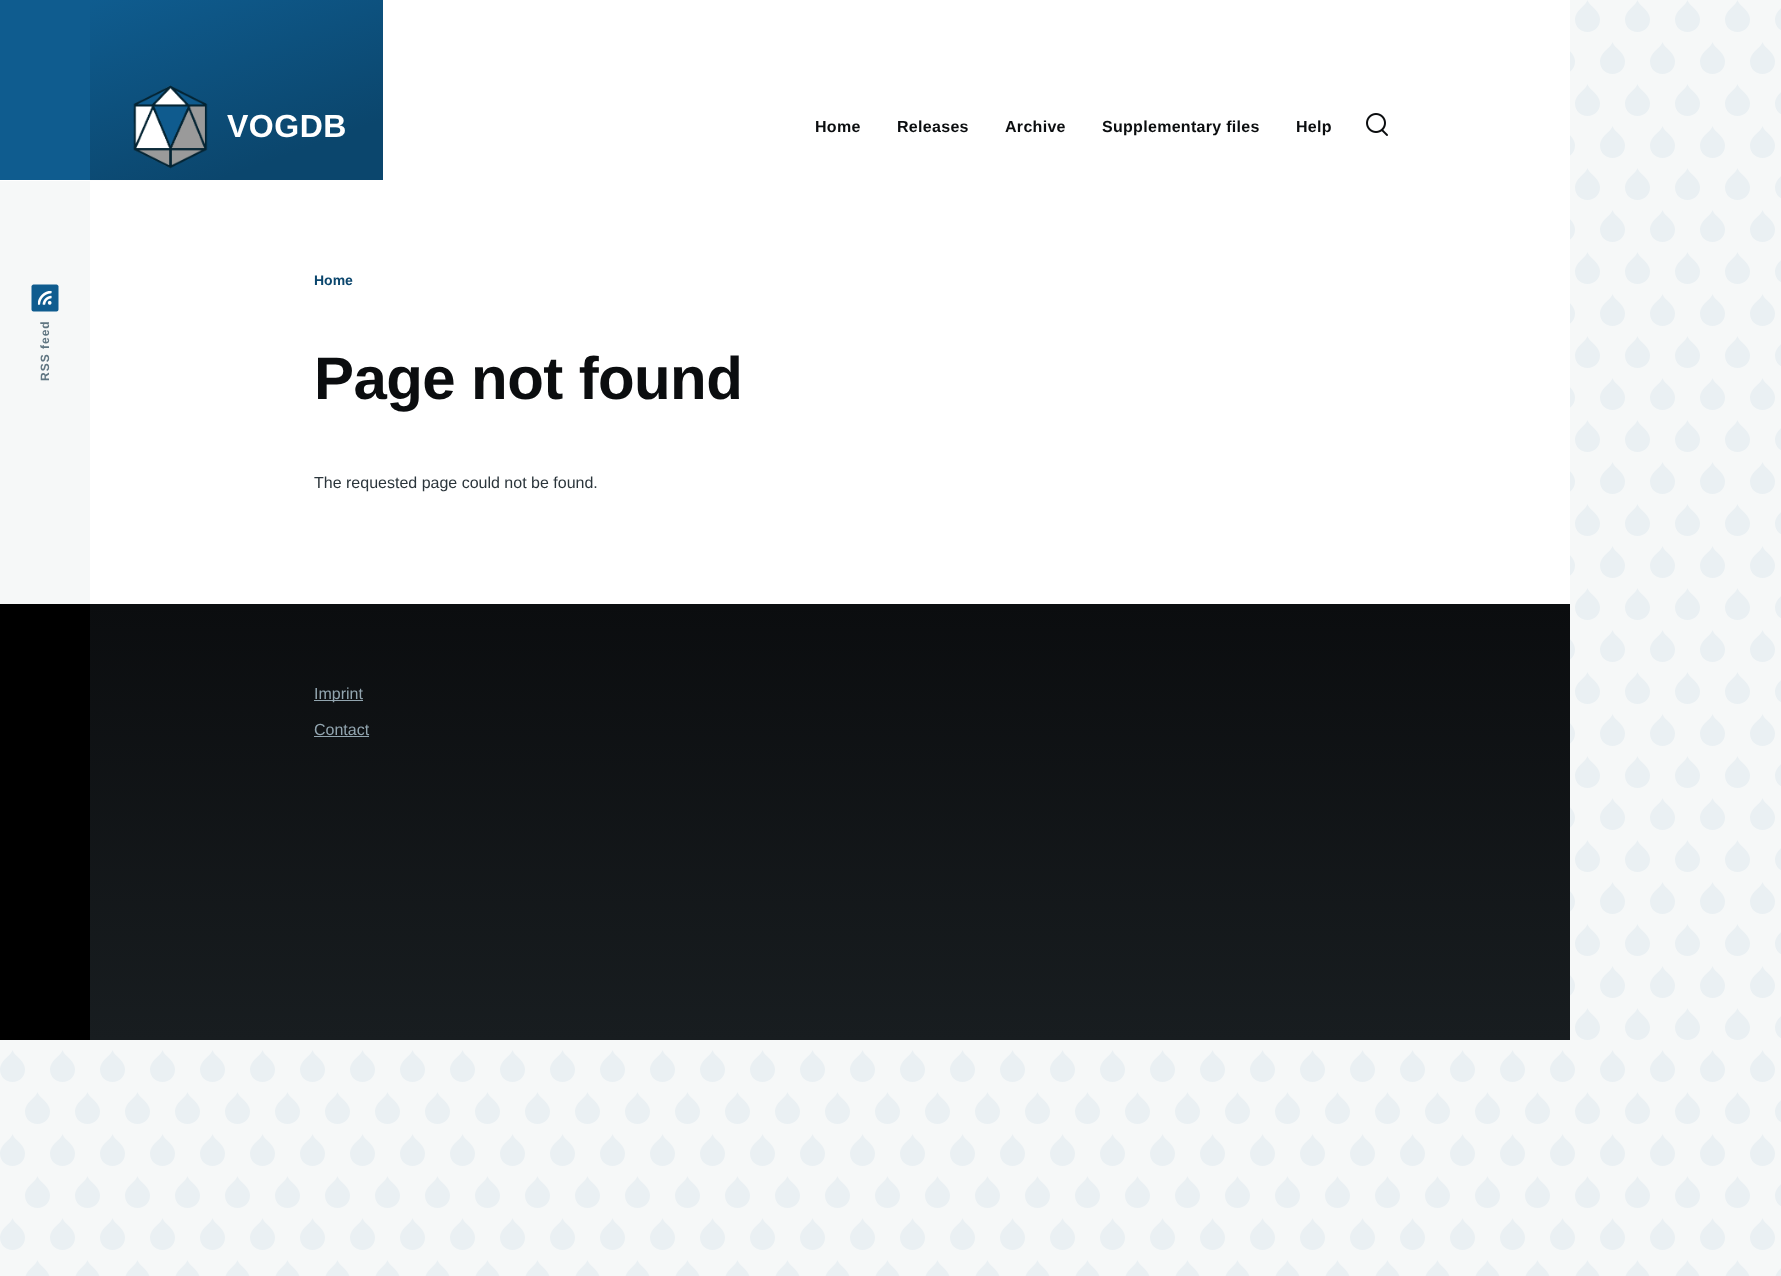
(async () => {
    const canvas = document.querySelector("canvas");
    canvas.width = 1781;
    canvas.height = 1276;
    const context = canvas.getContext("2d");
    context.miterLimit = 4;
    context.fontKerning = "normal";
    function write(s, x, y, font, color) {
        context.font = font;
        context.fillStyle = color;
        context.fillText(s, x, y);
    }
    function block(x, y, w, h, color) {
        context.fillStyle = color;
        context.fillRect(x, y, w, h);
    }
    async function photo(src, x, y, w, h) {
        const img = new Image();
        img.src = src;
        await img.decode();
        context.drawImage(img, x, y, w, h);
    }
    let gradient;

    block(0, 0, 1781, 1276, "rgb(246, 248, 248)");
    await photo("media/1.png", 0, 0, 1781, 1276);
    block(0, 0, 1570, 604, "rgb(255, 255, 255)");
    block(0, 0, 90, 180, "rgb(15, 92, 143)");
    gradient = context.createLinearGradient(190, -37, 283, 217);
    gradient.addColorStop(0, "rgb(15, 92, 143)");
    gradient.addColorStop(0.79, "rgb(11, 70, 109)");
    context.fillStyle = gradient;
    context.fillRect(90, 0, 293, 180);
    await photo("media/2.png", 133, 85, 75, 84);
    context.letterSpacing = "0.5px";
    write("VOGDB", 227, 137, "bold 32px Liberation Sans", "rgb(255, 255, 255)");
    context.letterSpacing = "0.3px";
    write("Home", 815, 132, "bold 16px Liberation Sans", "rgb(11, 13, 15)");
    write("Releases", 897, 132, "bold 16px Liberation Sans", "rgb(11, 13, 15)");
    write("Archive", 1005, 132, "bold 16px Liberation Sans", "rgb(11, 13, 15)");
    write("Supplementary files", 1102, 132, "bold 16px Liberation Sans", "rgb(11, 13, 15)");
    write("Help", 1296, 132, "bold 16px Liberation Sans", "rgb(11, 13, 15)");
    await photo("media/3.png", 1366, 113, 22, 23);
    block(0, 181, 90, 423, "rgb(246, 248, 248)");
    context.fillStyle = "rgb(15, 92, 143)";
    context.beginPath();
    context.moveTo(31.5, 309.5);
    context.lineTo(31.5, 286.5);
    context.bezierCurveTo(31.5, 285.5, 32.5, 284.5, 33.5, 284.5);
    context.lineTo(56.5, 284.5);
    context.bezierCurveTo(57.5, 284.5, 58.5, 285.5, 58.5, 286.5);
    context.lineTo(58.5, 309.5);
    context.bezierCurveTo(58.5, 310.5, 57.5, 311.5, 56.5, 311.5);
    context.lineTo(33.5, 311.5);
    context.bezierCurveTo(32.5, 311.5, 31.5, 310.5, 31.5, 309.5);
    context.closePath();
    context.fill();
    await photo("media/4.png", 37, 290, 15, 15);
    context.letterSpacing = "1px";
    context.font = "bold 12px Liberation Sans";
    context.fillStyle = "rgb(95, 117, 129)";
    context.save();
    context.translate(49, 381);
    context.rotate(-90 * Math.PI / 180);
    context.fillText("RSS feed", 0, 0);
    context.restore();
    context.letterSpacing = "0px";
    write("Home", 314, 285, "bold 14px Liberation Sans", "rgb(11, 70, 109)");
    context.letterSpacing = "-0.6px";
    write("Page not found", 314, 399, "bold 60px Liberation Sans", "rgb(11, 13, 15)");
    context.letterSpacing = "0px";
    write("The requested page could not be found.", 314, 488, "16px Liberation Sans", "rgb(43, 53, 59)");
    gradient = context.createLinearGradient(830, 604, 830, 1040);
    gradient.addColorStop(0, "rgb(11, 13, 15)");
    gradient.addColorStop(1, "rgb(24, 29, 32)");
    context.fillStyle = gradient;
    context.fillRect(90, 604, 1480, 436);
    block(0, 604, 90, 436, "rgb(0, 0, 0)");
    block(314, 700, 49, 1, "rgb(146, 165, 175)");
    write("Imprint", 314, 699, "16px Liberation Sans", "rgb(146, 165, 175)");
    write("Contact", 314, 735, "16px Liberation Sans", "rgb(146, 165, 175)");
    block(314, 736, 55, 1, "rgb(146, 165, 175)");
})();
